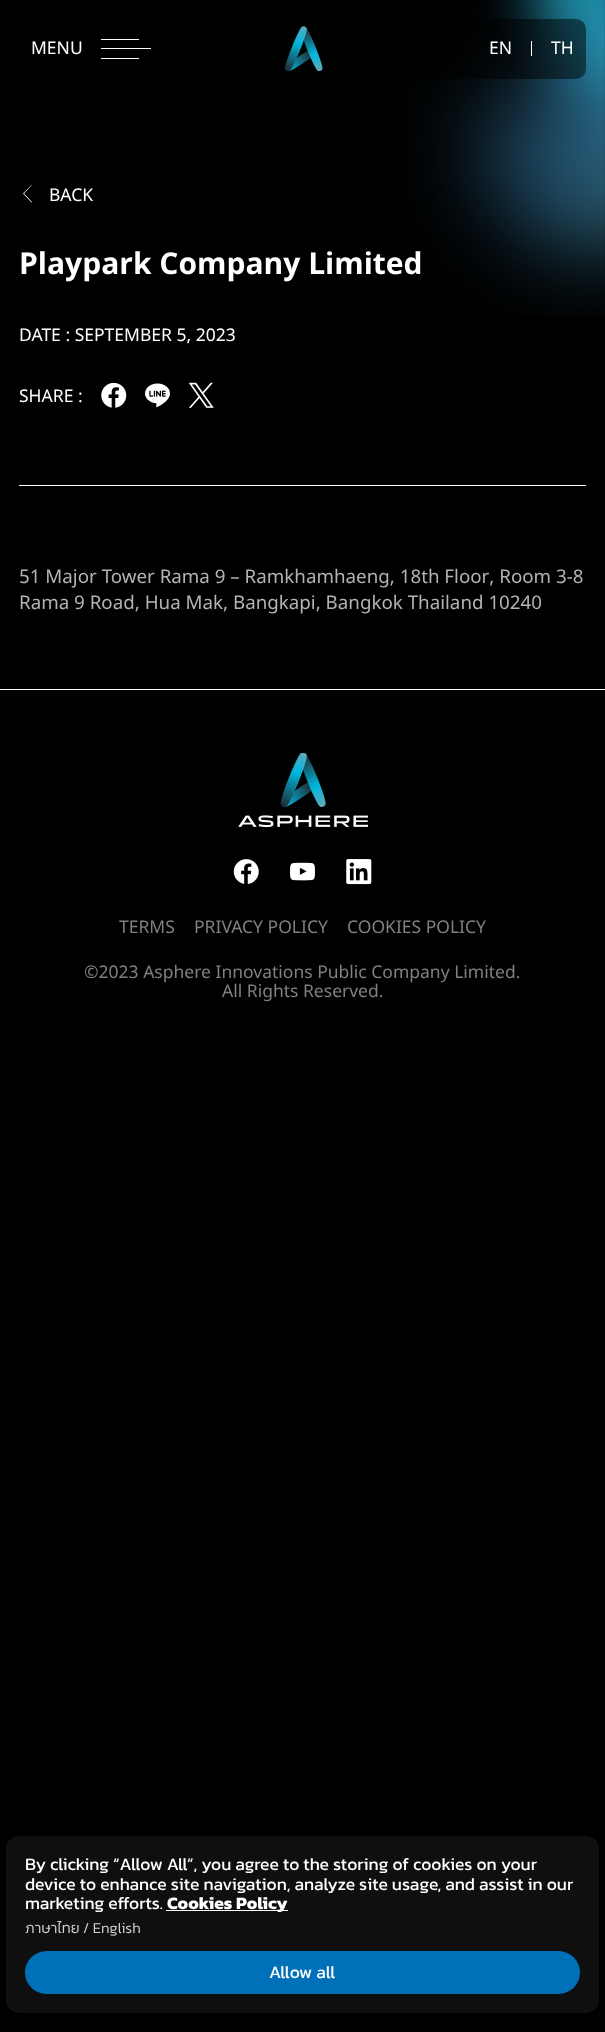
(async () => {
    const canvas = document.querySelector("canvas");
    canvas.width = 605;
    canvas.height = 2032;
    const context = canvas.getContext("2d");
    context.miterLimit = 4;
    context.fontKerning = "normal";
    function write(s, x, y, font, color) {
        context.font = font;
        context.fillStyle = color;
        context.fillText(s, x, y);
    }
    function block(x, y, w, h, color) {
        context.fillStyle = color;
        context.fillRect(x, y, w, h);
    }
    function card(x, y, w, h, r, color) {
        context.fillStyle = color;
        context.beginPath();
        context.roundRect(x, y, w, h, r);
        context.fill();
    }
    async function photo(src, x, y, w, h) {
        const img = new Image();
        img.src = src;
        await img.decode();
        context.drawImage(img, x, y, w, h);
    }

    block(0, 0, 605, 2032, "rgb(0, 0, 0)");
    await photo("media/2.png", 407, 0, 198, 317);
    card(19, 19, 567, 60, 10, "rgba(0, 0, 0, 0.5)");
    write("MENU", 31, 54, "17.5px Noto Sans Thai", "rgb(255, 255, 255)");
    block(101, 39, 38, 1, "rgb(255, 255, 255)");
    block(101, 48, 50, 1, "rgb(255, 255, 255)");
    block(101, 58, 38, 1, "rgb(255, 255, 255)");
    await photo("media/1.png", 285, 26, 38, 45);
    write("EN", 489, 54, "17.5px Noto Sans Thai", "rgb(255, 255, 255)");
    block(531, 41, 1, 15, "rgb(255, 255, 255)");
    write("TH", 551, 54, "17.5px Noto Sans Thai", "rgb(255, 255, 255)");
    block(19, 485, 567, 1, "rgb(255, 255, 255)");
    write("BACK", 49, 201, "17.5px Noto Sans Thai", "rgb(255, 255, 255)");
    context.beginPath();
    context.moveTo(31.5, 202.5);
    context.lineTo(32, 202);
    context.lineTo(24, 193.5);
    context.lineTo(32, 185);
    context.lineTo(31.5, 185);
    context.lineTo(23, 193.5);
    context.closePath();
    context.fill();
    write("Playpark Company Limited", 19, 274, "bold 30px Noto Sans Thai", "rgb(255, 255, 255)");
    write("DATE : SEPTEMBER 5, 2023", 19, 341, "17.5px Noto Sans Thai", "rgb(255, 255, 255)");
    write("SHARE :", 19, 402, "17.5px Noto Sans Thai", "rgb(255, 255, 255)");
    await photo("media/3.png", 101, 382, 26, 26);
    await photo("media/4.png", 145, 383, 25, 25);
    await photo("media/5.png", 188, 382, 26, 26);
    write("51 Major Tower Rama 9 – Ramkhamhaeng, 18th Floor, Room 3-8", 19, 583, "18.75px Noto Sans Thai Looped", "rgb(179, 179, 179)");
    write("Rama 9 Road, Hua Mak, Bangkapi, Bangkok Thailand 10240", 19, 609, "18.75px Noto Sans Thai Looped", "rgb(179, 179, 179)");
    block(0, 689, 605, 1, "rgb(255, 255, 255)");
    await photo("media/6.png", 238, 753, 131, 75);
    await photo("media/7.png", 233, 859, 26, 25);
    await photo("media/8.png", 290, 862, 25, 19);
    await photo("media/9.png", 346, 859, 26, 26);
    write("TERMS", 119, 933, "17.5px Noto Sans Thai", "rgb(128, 128, 128)");
    write("PRIVACY POLICY", 194, 933, "17.5px Noto Sans Thai", "rgb(128, 128, 128)");
    write("COOKIES POLICY", 347, 933, "17.5px Noto Sans Thai", "rgb(128, 128, 128)");
    write("©2023 Asphere Innovations Public Company Limited.", 84, 978, "17.5px Noto Sans Thai", "rgb(128, 128, 128)");
    write("All Rights Reserved.", 222, 997, "17.5px Noto Sans Thai", "rgb(128, 128, 128)");
    card(6, 1836, 593, 177, 13, "rgb(15, 15, 15)");
    write("By clicking “Allow All”, you agree to the storing of cookies on your", 25, 1870, "17.5px Kanit", "rgb(255, 255, 255)");
    write("device to enhance site navigation, analyze site usage, and assist in our", 25, 1890, "17.5px Kanit", "rgb(255, 255, 255)");
    write("marketing efforts.", 25, 1909, "17.5px Kanit", "rgb(255, 255, 255)");
    block(166, 1910, 122, 1, "rgb(255, 255, 255)");
    write("Cookies Policy", 167, 1909, "bold 17.5px Kanit", "rgb(255, 255, 255)");
    write("ภาษาไทย / English", 25, 1933, "300 15px Kanit", "rgb(210, 210, 210)");
    card(25, 1951, 555, 43, 21.5, "rgb(0, 112, 184)");
    write("Allow all", 269, 1978, "17.5px Kanit", "rgb(255, 255, 255)");
})();
